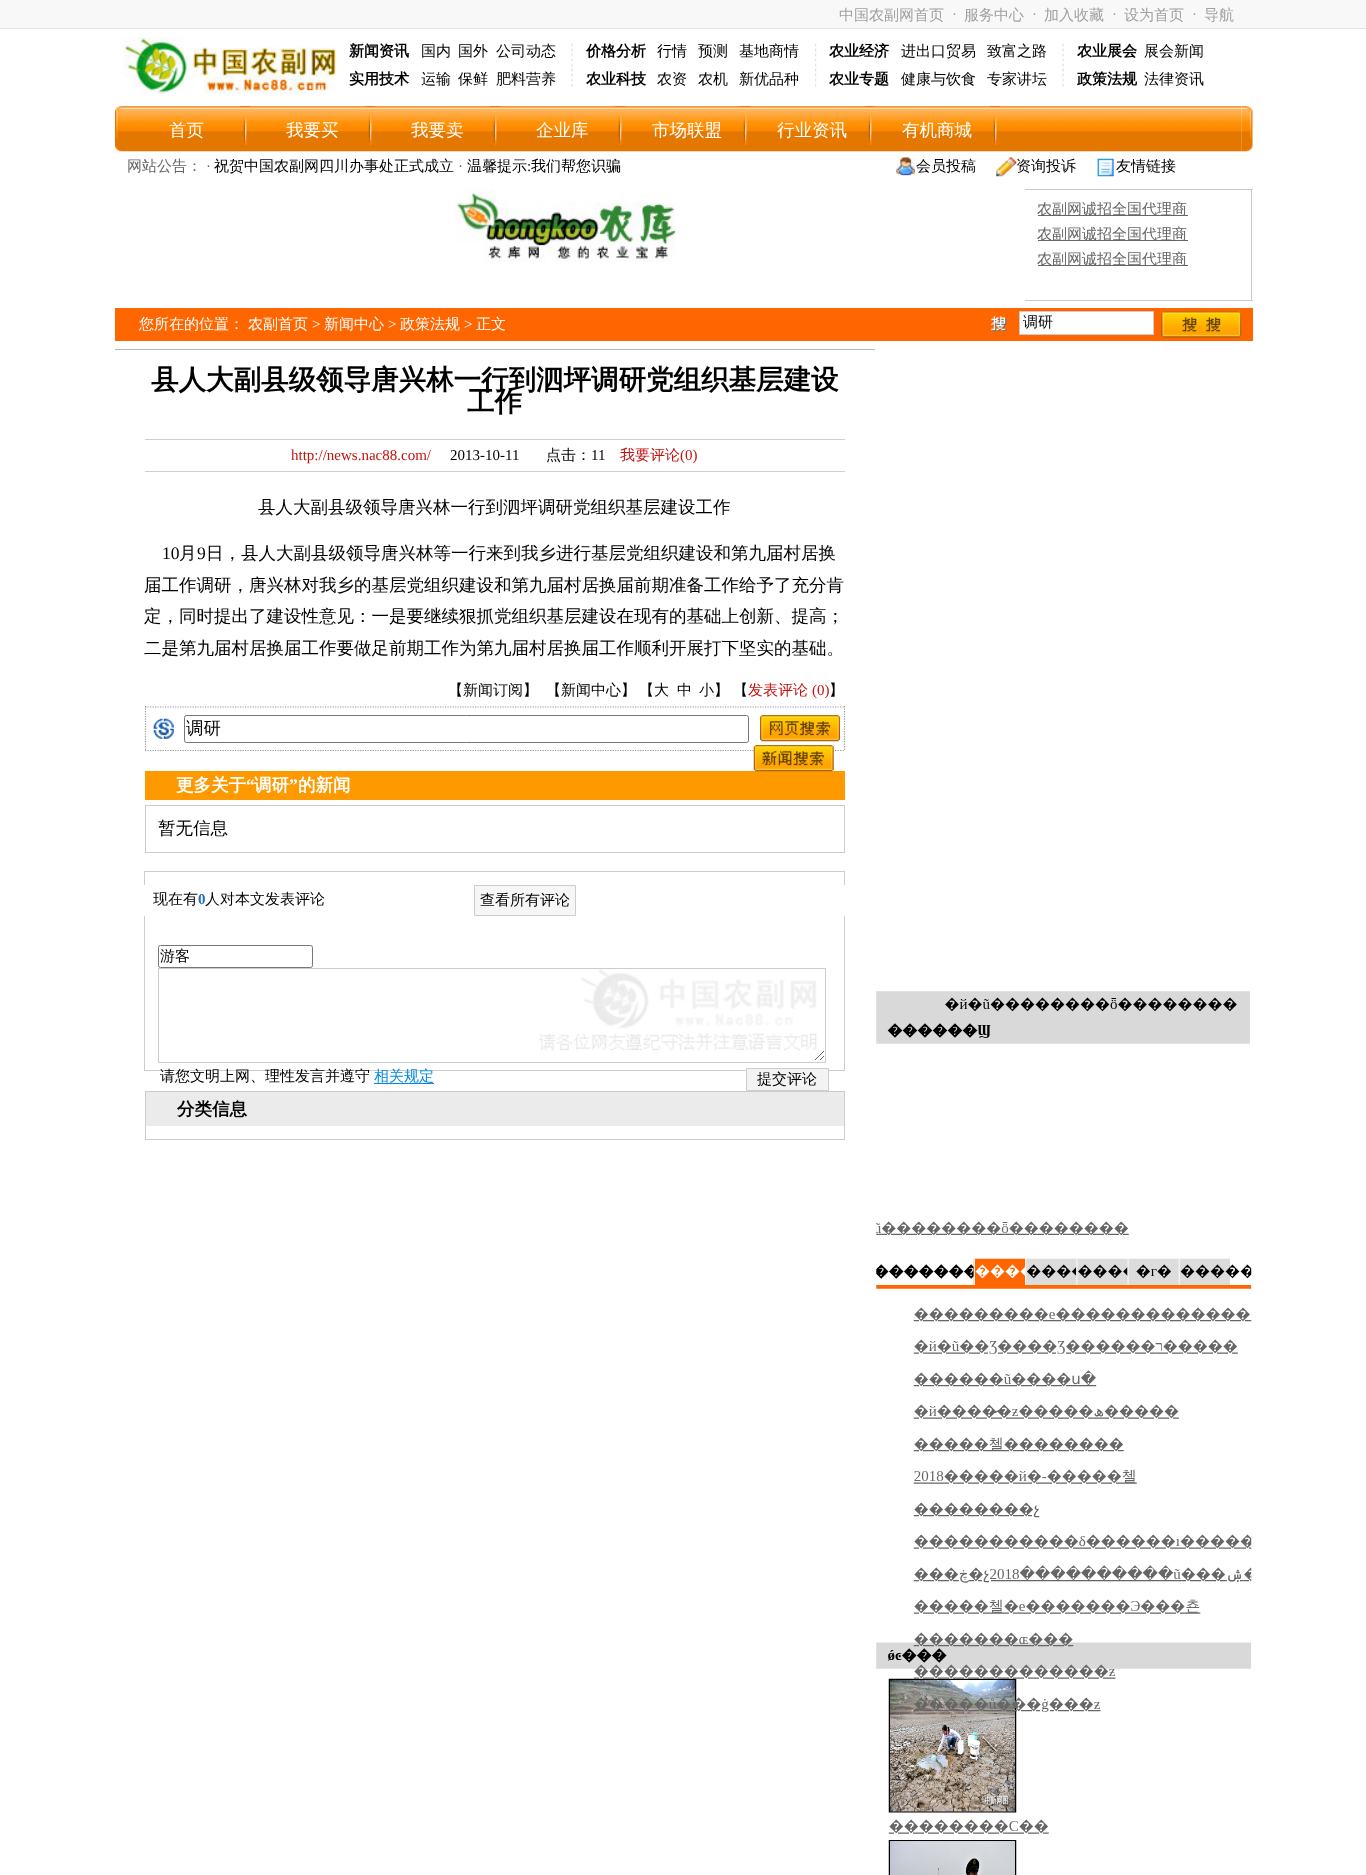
(async () => {
    const canvas = document.querySelector("canvas");
    canvas.width = 1366;
    canvas.height = 1875;
    const context = canvas.getContext("2d");
    context.miterLimit = 4;
    context.fontKerning = "normal";
    function write(s, x, y, font, color) {
        context.font = font;
        context.fillStyle = color;
        context.fillText(s, x, y);
    }
    function block(x, y, w, h, color) {
        context.fillStyle = color;
        context.fillRect(x, y, w, h);
    }
    async function photo(src, x, y, w, h) {
        const img = new Image();
        img.src = src;
        await img.decode();
        context.drawImage(img, x, y, w, h);
    }

    block(0, 0, 1366, 1875, "rgb(255, 255, 255)");
    block(0, 0, 1366, 28, "rgb(248, 248, 248)");
    block(0, 28, 1366, 1, "rgb(230, 230, 230)");
    write("中国农副网首页", 839, 20, "500 15px WenQuanYi Zen Hei", "rgb(161, 160, 160)");
    write("·", 952, 19, "15px Liberation Serif", "rgb(161, 160, 160)");
    write("服务中心", 964, 20, "500 15px WenQuanYi Zen Hei", "rgb(161, 160, 160)");
    write("·", 1032, 19, "15px Liberation Serif", "rgb(161, 160, 160)");
    write("加入收藏", 1044, 20, "500 15px WenQuanYi Zen Hei", "rgb(161, 160, 160)");
    write("·", 1112, 19, "15px Liberation Serif", "rgb(161, 160, 160)");
    write("设为首页", 1124, 20, "500 15px WenQuanYi Zen Hei", "rgb(161, 160, 160)");
    write("·", 1192, 19, "15px Liberation Serif", "rgb(161, 160, 160)");
    write("导航", 1204, 20, "500 15px WenQuanYi Zen Hei", "rgb(161, 160, 160)");
    await photo("media/1.png", 123, 37, 213, 57);
    write("新闻资讯", 349, 56, "bold 15px WenQuanYi Zen Hei", "rgb(0, 0, 0)");
    write("国内", 421, 56, "500 15px WenQuanYi Zen Hei", "rgb(0, 0, 0)");
    write("国外", 458, 56, "500 15px WenQuanYi Zen Hei", "rgb(0, 0, 0)");
    write("公司动态", 496, 56, "500 15px WenQuanYi Zen Hei", "rgb(0, 0, 0)");
    write("实用技术", 349, 84, "bold 15px WenQuanYi Zen Hei", "rgb(0, 0, 0)");
    write("运输", 421, 84, "500 15px WenQuanYi Zen Hei", "rgb(0, 0, 0)");
    write("保鲜", 458, 84, "500 15px WenQuanYi Zen Hei", "rgb(0, 0, 0)");
    write("肥料营养", 496, 84, "500 15px WenQuanYi Zen Hei", "rgb(0, 0, 0)");
    await photo("media/2.png", 571, 28, 2, 59);
    write("价格分析", 586, 56, "bold 15px WenQuanYi Zen Hei", "rgb(0, 0, 0)");
    write("行情", 657, 56, "500 15px WenQuanYi Zen Hei", "rgb(0, 0, 0)");
    write("预测", 698, 56, "500 15px WenQuanYi Zen Hei", "rgb(0, 0, 0)");
    write("基地商情", 739, 56, "500 15px WenQuanYi Zen Hei", "rgb(0, 0, 0)");
    write("农业科技", 586, 84, "bold 15px WenQuanYi Zen Hei", "rgb(0, 0, 0)");
    write("农资", 657, 84, "500 15px WenQuanYi Zen Hei", "rgb(0, 0, 0)");
    write("农机", 698, 84, "500 15px WenQuanYi Zen Hei", "rgb(0, 0, 0)");
    write("新优品种", 739, 84, "500 15px WenQuanYi Zen Hei", "rgb(0, 0, 0)");
    await photo("media/3.png", 815, 28, 2, 59);
    write("农业经济", 829, 56, "bold 15px WenQuanYi Zen Hei", "rgb(0, 0, 0)");
    write("进出口贸易", 901, 56, "500 15px WenQuanYi Zen Hei", "rgb(0, 0, 0)");
    write("致富之路", 987, 56, "500 15px WenQuanYi Zen Hei", "rgb(0, 0, 0)");
    write("农业专题", 829, 84, "bold 15px WenQuanYi Zen Hei", "rgb(0, 0, 0)");
    write("健康与饮食", 901, 84, "500 15px WenQuanYi Zen Hei", "rgb(0, 0, 0)");
    write("专家讲坛", 987, 84, "500 15px WenQuanYi Zen Hei", "rgb(0, 0, 0)");
    await photo("media/4.png", 1062, 28, 2, 59);
    write("农业展会", 1077, 56, "bold 15px WenQuanYi Zen Hei", "rgb(0, 0, 0)");
    write("展会新闻", 1144, 56, "500 15px WenQuanYi Zen Hei", "rgb(0, 0, 0)");
    write("政策法规", 1077, 84, "bold 15px WenQuanYi Zen Hei", "rgb(0, 0, 0)");
    write("法律资讯", 1144, 84, "500 15px WenQuanYi Zen Hei", "rgb(0, 0, 0)");
    await photo("media/5.png", 115, 106, 10, 46);
    await photo("media/6.png", 125, 106, 1117, 46);
    await photo("media/7.png", 240, 106, 10, 40);
    write("首页", 169, 136, "500 17.5px WenQuanYi Zen Hei", "rgb(255, 255, 255)");
    await photo("media/7.png", 365, 106, 10, 40);
    write("我要买", 286, 136, "500 17.5px WenQuanYi Zen Hei", "rgb(255, 255, 255)");
    await photo("media/7.png", 490, 106, 10, 40);
    write("我要卖", 411, 136, "500 17.5px WenQuanYi Zen Hei", "rgb(255, 255, 255)");
    await photo("media/7.png", 615, 106, 10, 40);
    write("企业库", 536, 136, "500 17.5px WenQuanYi Zen Hei", "rgb(255, 255, 255)");
    await photo("media/7.png", 740, 106, 10, 40);
    write("市场联盟", 652, 136, "500 17.5px WenQuanYi Zen Hei", "rgb(255, 255, 255)");
    await photo("media/7.png", 865, 106, 10, 40);
    write("行业资讯", 777, 136, "500 17.5px WenQuanYi Zen Hei", "rgb(255, 255, 255)");
    await photo("media/7.png", 990, 106, 10, 40);
    write("有机商城", 902, 136, "500 17.5px WenQuanYi Zen Hei", "rgb(255, 255, 255)");
    await photo("media/8.png", 1241, 106, 12, 46);
    write("网站公告：", 127, 171, "500 15px WenQuanYi Zen Hei", "rgb(102, 102, 102)");
    write("·", 206, 171, "15px Liberation Serif", "rgb(102, 102, 102)");
    write("祝贺中国农副网四川办事处正式成立", 214, 171, "500 15px WenQuanYi Zen Hei", "rgb(0, 0, 0)");
    write("·", 458, 171, "15px Liberation Serif", "rgb(102, 102, 102)");
    write("温馨提示", 467, 171, "500 15px WenQuanYi Zen Hei", "rgb(0, 0, 0)");
    write(":", 527, 171, "15px Liberation Serif", "rgb(0, 0, 0)");
    write("我们帮您识骗", 531, 171, "500 15px WenQuanYi Zen Hei", "rgb(0, 0, 0)");
    await photo("media/9.png", 896, 157, 19, 20);
    write("会员投稿", 916, 171, "500 15px WenQuanYi Zen Hei", "rgb(0, 0, 0)");
    await photo("media/10.png", 996, 157, 21, 20);
    write("资询投诉", 1016, 171, "500 15px WenQuanYi Zen Hei", "rgb(0, 0, 0)");
    await photo("media/11.png", 1097, 158, 17, 19);
    write("友情链接", 1116, 171, "500 15px WenQuanYi Zen Hei", "rgb(0, 0, 0)");
    await photo("media/12.png", 455, 189, 221, 73);
    block(1025, 189, 228, 1, "rgb(205, 201, 202)");
    block(1251, 189, 1, 112, "rgb(205, 201, 202)");
    block(1025, 300, 228, 1, "rgb(205, 201, 202)");
    block(1038, 215, 150, 1, "rgb(102, 102, 102)");
    write("农副网诚招全国代理商", 1037, 214, "500 15px WenQuanYi Zen Hei", "rgb(102, 102, 102)");
    block(1038, 240, 150, 1, "rgb(102, 102, 102)");
    write("农副网诚招全国代理商", 1037, 239, "500 15px WenQuanYi Zen Hei", "rgb(102, 102, 102)");
    block(1038, 265, 150, 1, "rgb(102, 102, 102)");
    write("农副网诚招全国代理商", 1037, 264, "500 15px WenQuanYi Zen Hei", "rgb(102, 102, 102)");
    block(115, 308, 1138, 33, "rgb(255, 102, 0)");
    write("您所在的位置：", 139, 329, "500 15px WenQuanYi Zen Hei", "rgb(255, 255, 255)");
    write("农副首页", 248, 329, "500 15px WenQuanYi Zen Hei", "rgb(255, 255, 255)");
    write(">", 312, 329, "15px Liberation Serif", "rgb(255, 255, 255)");
    write("新闻中心", 324, 329, "500 15px WenQuanYi Zen Hei", "rgb(255, 255, 255)");
    write(">", 388, 329, "15px Liberation Serif", "rgb(255, 255, 255)");
    write("政策法规", 400, 329, "500 15px WenQuanYi Zen Hei", "rgb(255, 255, 255)");
    write(">", 464, 329, "15px Liberation Serif", "rgb(255, 255, 255)");
    write("正文", 476, 329, "500 15px WenQuanYi Zen Hei", "rgb(255, 255, 255)");
    await photo("media/13.png", 991, 316, 16, 16);
    context.beginPath();
    context.rect(1019.5, 311.5, 134, 23);
    context.fill();
    context.strokeStyle = "rgb(204, 204, 204)";
    context.stroke();
    write("调研", 1023, 327, "500 15px WenQuanYi Zen Hei", "rgb(0, 0, 0)");
    await photo("media/14.png", 1161, 311, 81, 27);
    block(115, 349, 760, 1, "rgb(183, 183, 183)");
    write("县人大副县级领导唐兴林一行到泗坪调研党组织基层建设", 151, 389, "bold 27.5px WenQuanYi Zen Hei", "rgb(0, 0, 0)");
    write("工作", 467, 411, "bold 27.5px WenQuanYi Zen Hei", "rgb(0, 0, 0)");
    block(145, 439, 700, 1, "rgb(208, 208, 208)");
    block(145, 471, 700, 1, "rgb(208, 208, 208)");
    write("http://news.nac88.com/", 291, 460, "15px Liberation Serif", "rgb(194, 19, 14)");
    write("2013-10-11", 450, 460, "15px Liberation Serif", "rgb(0, 0, 0)");
    write("点击：", 546, 460, "500 15px WenQuanYi Zen Hei", "rgb(0, 0, 0)");
    write("11", 591, 460, "15px Liberation Serif", "rgb(0, 0, 0)");
    write("我要评论", 620, 460, "500 15px WenQuanYi Zen Hei", "rgb(194, 19, 14)");
    write("(0)", 680, 460, "15px Liberation Serif", "rgb(194, 19, 14)");
    write("县人大副县级领导唐兴林一行到泗坪调研党组织基层建设工作", 258, 513, "500 17.5px WenQuanYi Zen Hei", "rgb(0, 0, 0)");
    write("10", 162, 559, "17.5px Liberation Serif", "rgb(0, 0, 0)");
    write("月", 179, 559, "500 17.5px WenQuanYi Zen Hei", "rgb(0, 0, 0)");
    write("9", 197, 559, "17.5px Liberation Serif", "rgb(0, 0, 0)");
    write("日，县人大副县级领导唐兴林等一行来到我乡进行基层党组织建设和第九届村居换", 206, 559, "500 17.5px WenQuanYi Zen Hei", "rgb(0, 0, 0)");
    write("届工作调研，唐兴林对我乡的基层党组织建设和第九届村居换届前期准备工作给予了充分肯", 144, 591, "500 17.5px WenQuanYi Zen Hei", "rgb(0, 0, 0)");
    write("定，同时提出了建设性意见：一是要继续狠抓党组织基层建设在现有的基础上创新、提高；", 144, 622, "500 17.5px WenQuanYi Zen Hei", "rgb(0, 0, 0)");
    write("二是第九届村居换届工作要做足前期工作为第九届村居换届工作顺利开展打下坚实的基础。", 144, 654, "500 17.5px WenQuanYi Zen Hei", "rgb(0, 0, 0)");
    write("【新闻订阅】", 448, 695, "500 15px WenQuanYi Zen Hei", "rgb(0, 0, 0)");
    write("【新闻中心】", 546, 695, "500 15px WenQuanYi Zen Hei", "rgb(0, 0, 0)");
    write("【大", 639, 695, "500 15px WenQuanYi Zen Hei", "rgb(0, 0, 0)");
    write("中", 677, 695, "500 15px WenQuanYi Zen Hei", "rgb(0, 0, 0)");
    write("小】", 699, 695, "500 15px WenQuanYi Zen Hei", "rgb(0, 0, 0)");
    write("【", 733, 695, "500 15px WenQuanYi Zen Hei", "rgb(0, 0, 0)");
    write("发表评论", 748, 695, "500 15px WenQuanYi Zen Hei", "rgb(194, 19, 14)");
    write("(0)", 812, 695, "15px Liberation Serif", "rgb(194, 19, 14)");
    write("】", 829, 695, "500 15px WenQuanYi Zen Hei", "rgb(0, 0, 0)");
    context.beginPath();
    context.moveTo(145, 707);
    context.lineTo(845, 707);
    context.strokeStyle = "rgb(154, 154, 154)";
    context.lineWidth = 1.2;
    context.setLineDash([1.25, 1.25]);
    context.stroke();
    context.beginPath();
    context.moveTo(844.5, 706);
    context.lineTo(844.5, 751);
    context.stroke();
    context.beginPath();
    context.moveTo(145, 750.5);
    context.lineTo(845, 750.5);
    context.stroke();
    context.beginPath();
    context.moveTo(145.5, 706);
    context.lineTo(145.5, 751);
    context.stroke();
    await photo("media/15.png", 153, 718, 21, 21);
    context.beginPath();
    context.roundRect(184.5, 715.5, 564, 27, 2);
    context.strokeStyle = "rgb(118, 118, 118)";
    context.lineWidth = 1;
    context.setLineDash([]);
    context.stroke();
    write("调研", 186, 734, "500 17.5px WenQuanYi Zen Hei", "rgb(0, 0, 0)");
    await photo("media/16.png", 760, 715, 80, 27);
    block(145, 771, 700, 29, "rgb(255, 153, 0)");
    await photo("media/17.png", 753, 745, 81, 27);
    write("更多关于", 176, 791, "bold 17.5px WenQuanYi Zen Hei", "rgb(255, 255, 255)");
    write("“", 246, 791, "bold 17.5px Liberation Serif", "rgb(255, 255, 255)");
    write("调研", 254, 791, "bold 17.5px WenQuanYi Zen Hei", "rgb(255, 255, 255)");
    write("”", 289, 791, "bold 17.5px Liberation Serif", "rgb(255, 255, 255)");
    write("的新闻", 298, 791, "bold 17.5px WenQuanYi Zen Hei", "rgb(255, 255, 255)");
    context.strokeStyle = "rgb(204, 204, 204)";
    context.strokeRect(145.5, 805.5, 699, 47);
    write("暂无信息", 158, 834, "500 17.5px WenQuanYi Zen Hei", "rgb(0, 0, 0)");
    block(144, 871, 701, 1, "rgb(205, 205, 205)");
    block(844, 871, 1, 14, "rgb(205, 205, 205)");
    block(144, 871, 1, 14, "rgb(205, 205, 205)");
    write("现在有", 153, 904, "500 15px WenQuanYi Zen Hei", "rgb(0, 0, 0)");
    write("0", 198, 904, "bold 15px Liberation Serif", "rgb(34, 110, 177)");
    write("人对本文发表评论", 205, 904, "500 15px WenQuanYi Zen Hei", "rgb(0, 0, 0)");
    context.fillStyle = "rgb(246, 246, 247)";
    context.beginPath();
    context.rect(474.5, 885.5, 101, 30);
    context.fill();
    context.strokeStyle = "rgb(205, 205, 205)";
    context.stroke();
    write("查看所有评论", 480, 905, "500 15px WenQuanYi Zen Hei", "rgb(0, 0, 0)");
    block(844, 916, 1, 155, "rgb(205, 205, 205)");
    block(144, 1070, 701, 1, "rgb(205, 205, 205)");
    block(144, 916, 1, 155, "rgb(205, 205, 205)");
    context.beginPath();
    context.roundRect(158.5, 945.5, 154, 22, 2);
    context.strokeStyle = "rgb(118, 118, 118)";
    context.stroke();
    write("游客", 160, 961, "500 15px WenQuanYi Zen Hei", "rgb(0, 0, 0)");
    await photo("media/18.png", 538, 969, 286, 91);
    context.strokeStyle = "rgb(205, 205, 205)";
    context.strokeRect(158.5, 968.5, 667, 94);
    write("请您文明上网、理性发言并遵守", 160, 1081, "500 15px WenQuanYi Zen Hei", "rgb(0, 0, 0)");
    block(374, 1083, 60, 1, "rgb(0, 136, 228)");
    write("相关规定", 374, 1081, "500 15px WenQuanYi Zen Hei", "rgb(0, 136, 228)");
    context.fillStyle = "rgb(243, 243, 243)";
    context.beginPath();
    context.rect(746.5, 1068.5, 82, 22);
    context.fill();
    context.stroke();
    write("提交评论", 757, 1084, "500 15px WenQuanYi Zen Hei", "rgb(0, 0, 0)");
    block(146, 1092, 698, 34, "rgb(235, 235, 235)");
    block(145, 1091, 700, 1, "rgb(204, 204, 204)");
    block(844, 1091, 1, 49, "rgb(204, 204, 204)");
    block(145, 1091, 1, 35, "rgb(204, 204, 204)");
    write("分类信息", 177, 1115, "bold 17.5px WenQuanYi Zen Hei", "rgb(0, 0, 0)");
    block(145, 1139, 700, 1, "rgb(204, 204, 204)");
    block(145, 1126, 1, 14, "rgb(204, 204, 204)");
    await photo("media/19.png", 876, 991, 376, 884);
})();
